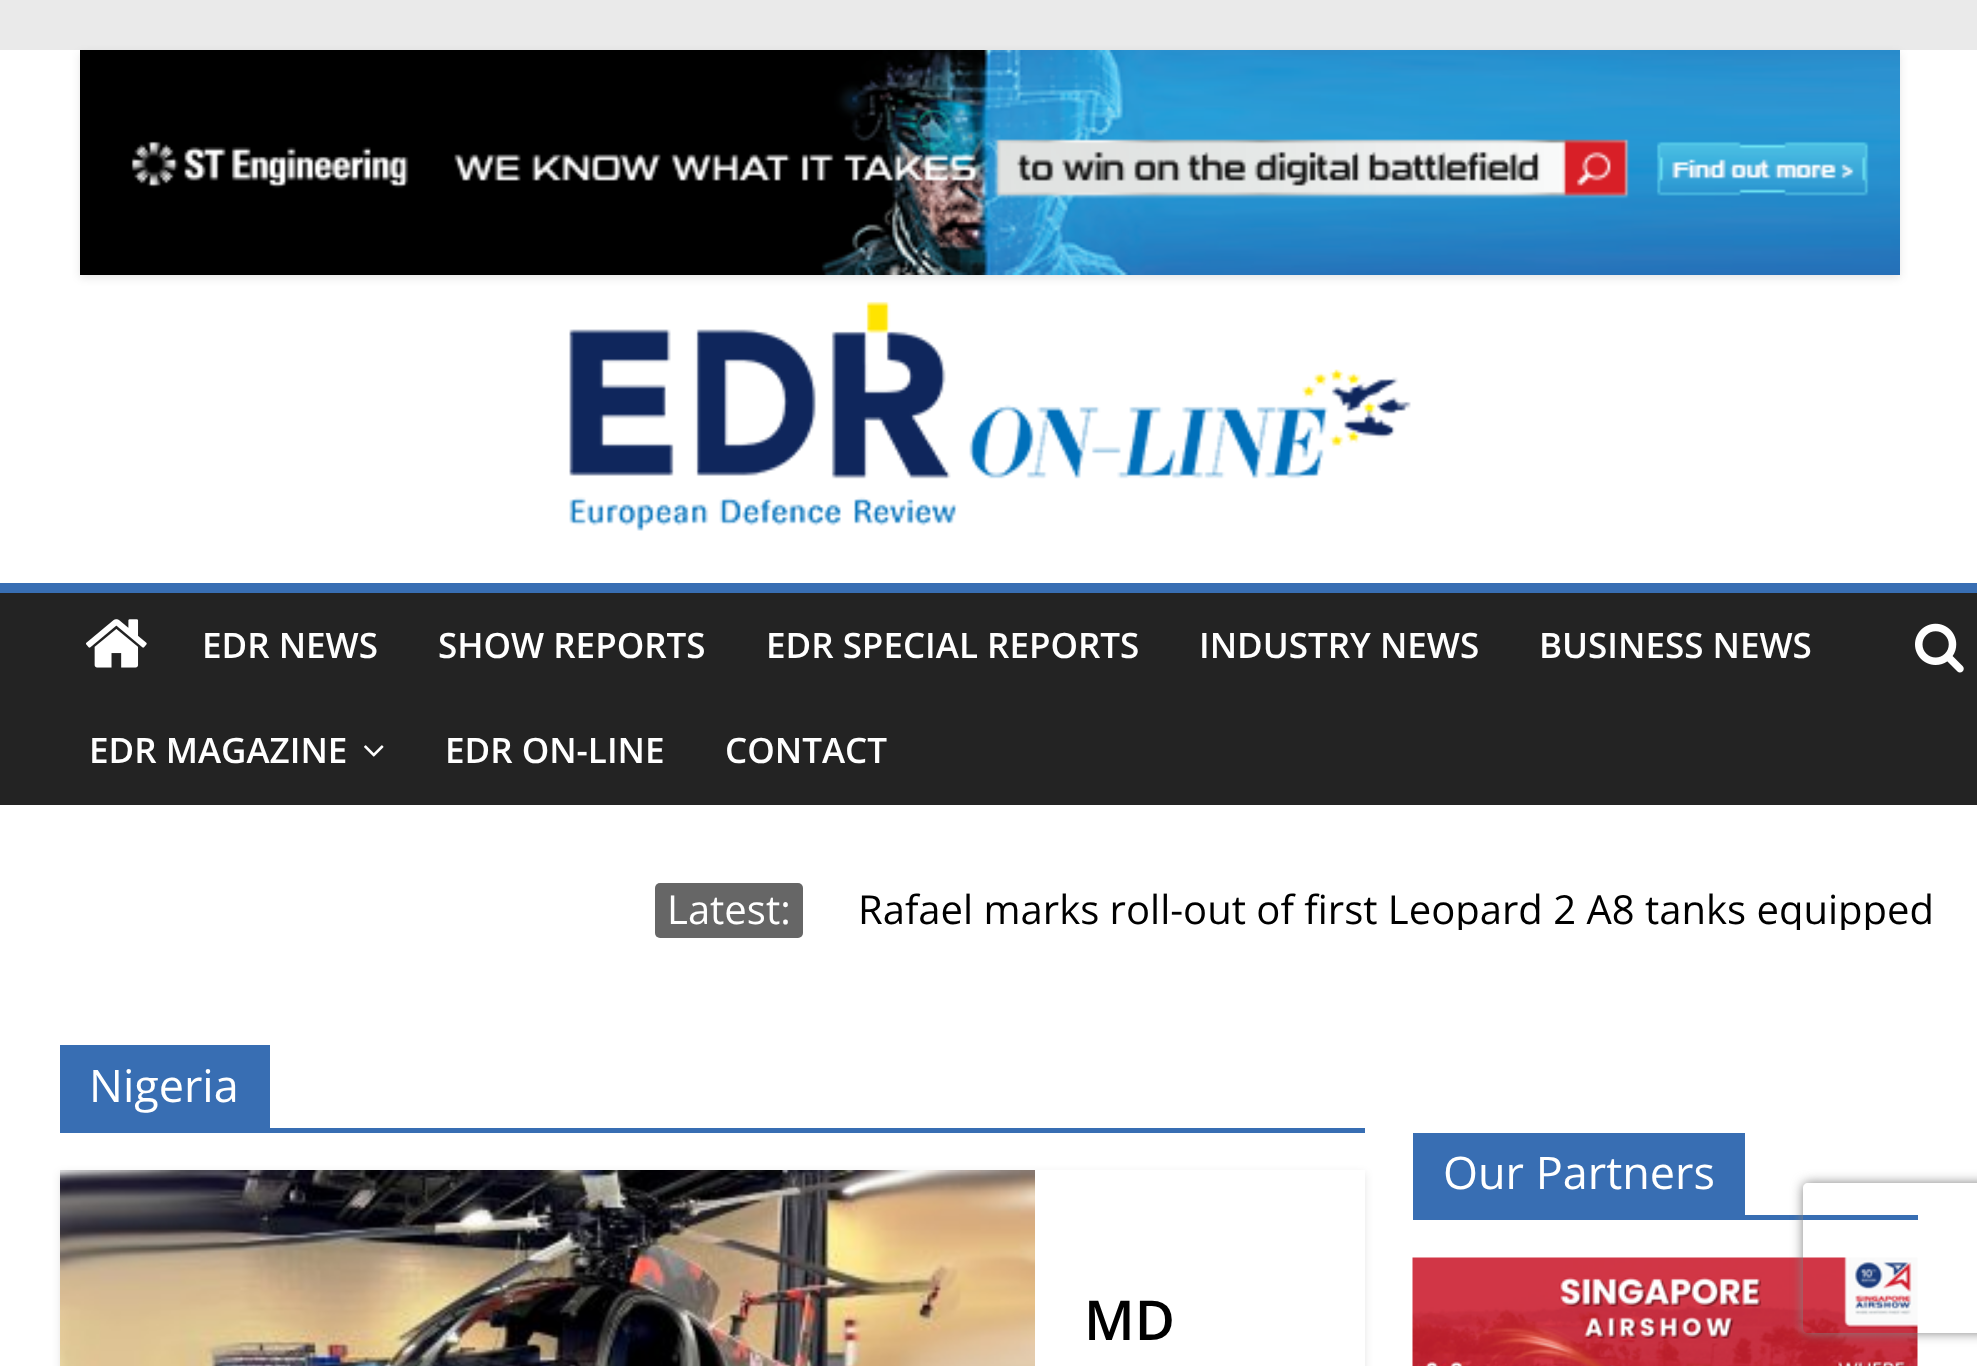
(async () => {
    const canvas = document.querySelector("canvas");
    canvas.width = 1977;
    canvas.height = 1366;
    const context = canvas.getContext("2d");
    context.miterLimit = 4;
    context.fontKerning = "normal";
    function write(s, x, y, font, color) {
        context.font = font;
        context.fillStyle = color;
        context.fillText(s, x, y);
    }
    function block(x, y, w, h, color) {
        context.fillStyle = color;
        context.fillRect(x, y, w, h);
    }
    function card(x, y, w, h, r, color) {
        context.fillStyle = color;
        context.beginPath();
        context.roundRect(x, y, w, h, r);
        context.fill();
    }
    async function photo(src, x, y, w, h) {
        const img = new Image();
        img.src = src;
        await img.decode();
        context.drawImage(img, x, y, w, h);
    }

    block(0, 0, 1977, 1366, "rgb(234, 234, 234)");
    block(0, 50, 1977, 533, "rgb(255, 255, 255)");
    context.fillStyle = "rgba(0, 0, 0, 0.1)";
    context.filter = "blur(4px)";
    context.beginPath();
    context.rect(80, 53, 1820, 225);
    context.fill();
    context.filter = "none";
    await photo("media/1.png", 80, 50, 1820, 225);
    await photo("media/2.png", 569, 301, 842, 230);
    block(0, 593, 1977, 212, "rgb(35, 35, 35)");
    block(0, 583, 1977, 10, "rgb(56, 110, 179)");
    await photo("media/3.png", 86, 619, 61, 49);
    await photo("media/4.png", 1915, 623, 49, 50);
    write("EDR NEWS", 202, 658, "600 35px Open Sans", "rgb(255, 255, 255)");
    write("SHOW REPORTS", 438, 658, "600 35px Open Sans", "rgb(255, 255, 255)");
    write("EDR SPECIAL REPORTS", 766, 658, "600 35px Open Sans", "rgb(255, 255, 255)");
    write("INDUSTRY NEWS", 1199, 658, "600 35px Open Sans", "rgb(255, 255, 255)");
    write("BUSINESS NEWS", 1539, 658, "600 35px Open Sans", "rgb(255, 255, 255)");
    write("EDR MAGAZINE", 89, 763, "600 35px Open Sans", "rgb(255, 255, 255)");
    await photo("media/5.png", 364, 745, 20, 12);
    write("EDR ON-LINE", 445, 763, "600 35px Open Sans", "rgb(255, 255, 255)");
    write("CONTACT", 725, 763, "600 35px Open Sans", "rgb(255, 255, 255)");
    block(0, 805, 1977, 561, "rgb(255, 255, 255)");
    card(655, 883, 148, 55, 5, "rgb(102, 102, 102)");
    write("Latest:", 667, 924, "40px Open Sans", "rgb(255, 255, 255)");
    context.save();
    context.beginPath();
    context.rect(803, 880, 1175, 50);
    context.clip();
    write("Rafael marks roll-out of first Leopard 2 A8 tanks equipped", 858, 924, "40px Open Sans", "rgb(0, 0, 0)");
    context.restore();
    block(60, 1128, 1305, 5, "rgb(56, 110, 179)");
    block(60, 1045, 210, 83, "rgb(56, 110, 179)");
    write("Nigeria", 89, 1102, "45px Open Sans", "rgb(255, 255, 255)");
    context.save();
    context.beginPath();
    context.moveTo(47, 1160);
    context.lineTo(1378, 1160);
    context.lineTo(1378, 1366);
    context.lineTo(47, 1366);
    context.closePath();
    context.moveTo(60, 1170);
    context.lineTo(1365, 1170);
    context.lineTo(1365, 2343);
    context.lineTo(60, 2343);
    context.closePath();
    context.clip("evenodd");
    context.fillStyle = "rgba(0, 0, 0, 0.1)";
    context.filter = "blur(4px)";
    context.beginPath();
    context.rect(60, 1173, 1305, 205);
    context.fill();
    context.filter = "none";
    context.restore();
    await photo("media/6.png", 60, 1170, 975, 196);
    write("MD", 1084, 1340, "600 55px Open Sans", "rgb(0, 0, 0)");
    block(1413, 1215, 505, 5, "rgb(56, 110, 179)");
    block(1413, 1133, 332, 82, "rgb(56, 110, 179)");
    write("Our Partners", 1443, 1189, "45px Open Sans", "rgb(255, 255, 255)");
    await photo("media/7.png", 1412, 1257, 506, 109);
    context.save();
    context.beginPath();
    context.moveTo(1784, 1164);
    context.lineTo(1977, 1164);
    context.lineTo(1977, 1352);
    context.lineTo(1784, 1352);
    context.closePath();
    context.moveTo(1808, 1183);
    context.lineTo(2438, 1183);
    context.bezierCurveTo(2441, 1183, 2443, 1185, 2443, 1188);
    context.lineTo(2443, 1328);
    context.bezierCurveTo(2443, 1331, 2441, 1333, 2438, 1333);
    context.lineTo(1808, 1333);
    context.bezierCurveTo(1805, 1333, 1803, 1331, 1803, 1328);
    context.lineTo(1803, 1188);
    context.bezierCurveTo(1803, 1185, 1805, 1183, 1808, 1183);
    context.closePath();
    context.clip("evenodd");
    context.fillStyle = "rgb(128, 128, 128)";
    context.filter = "blur(6px)";
    context.beginPath();
    context.roundRect(1803, 1183, 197, 150, 5);
    context.fill();
    context.filter = "none";
    context.restore();
})();
